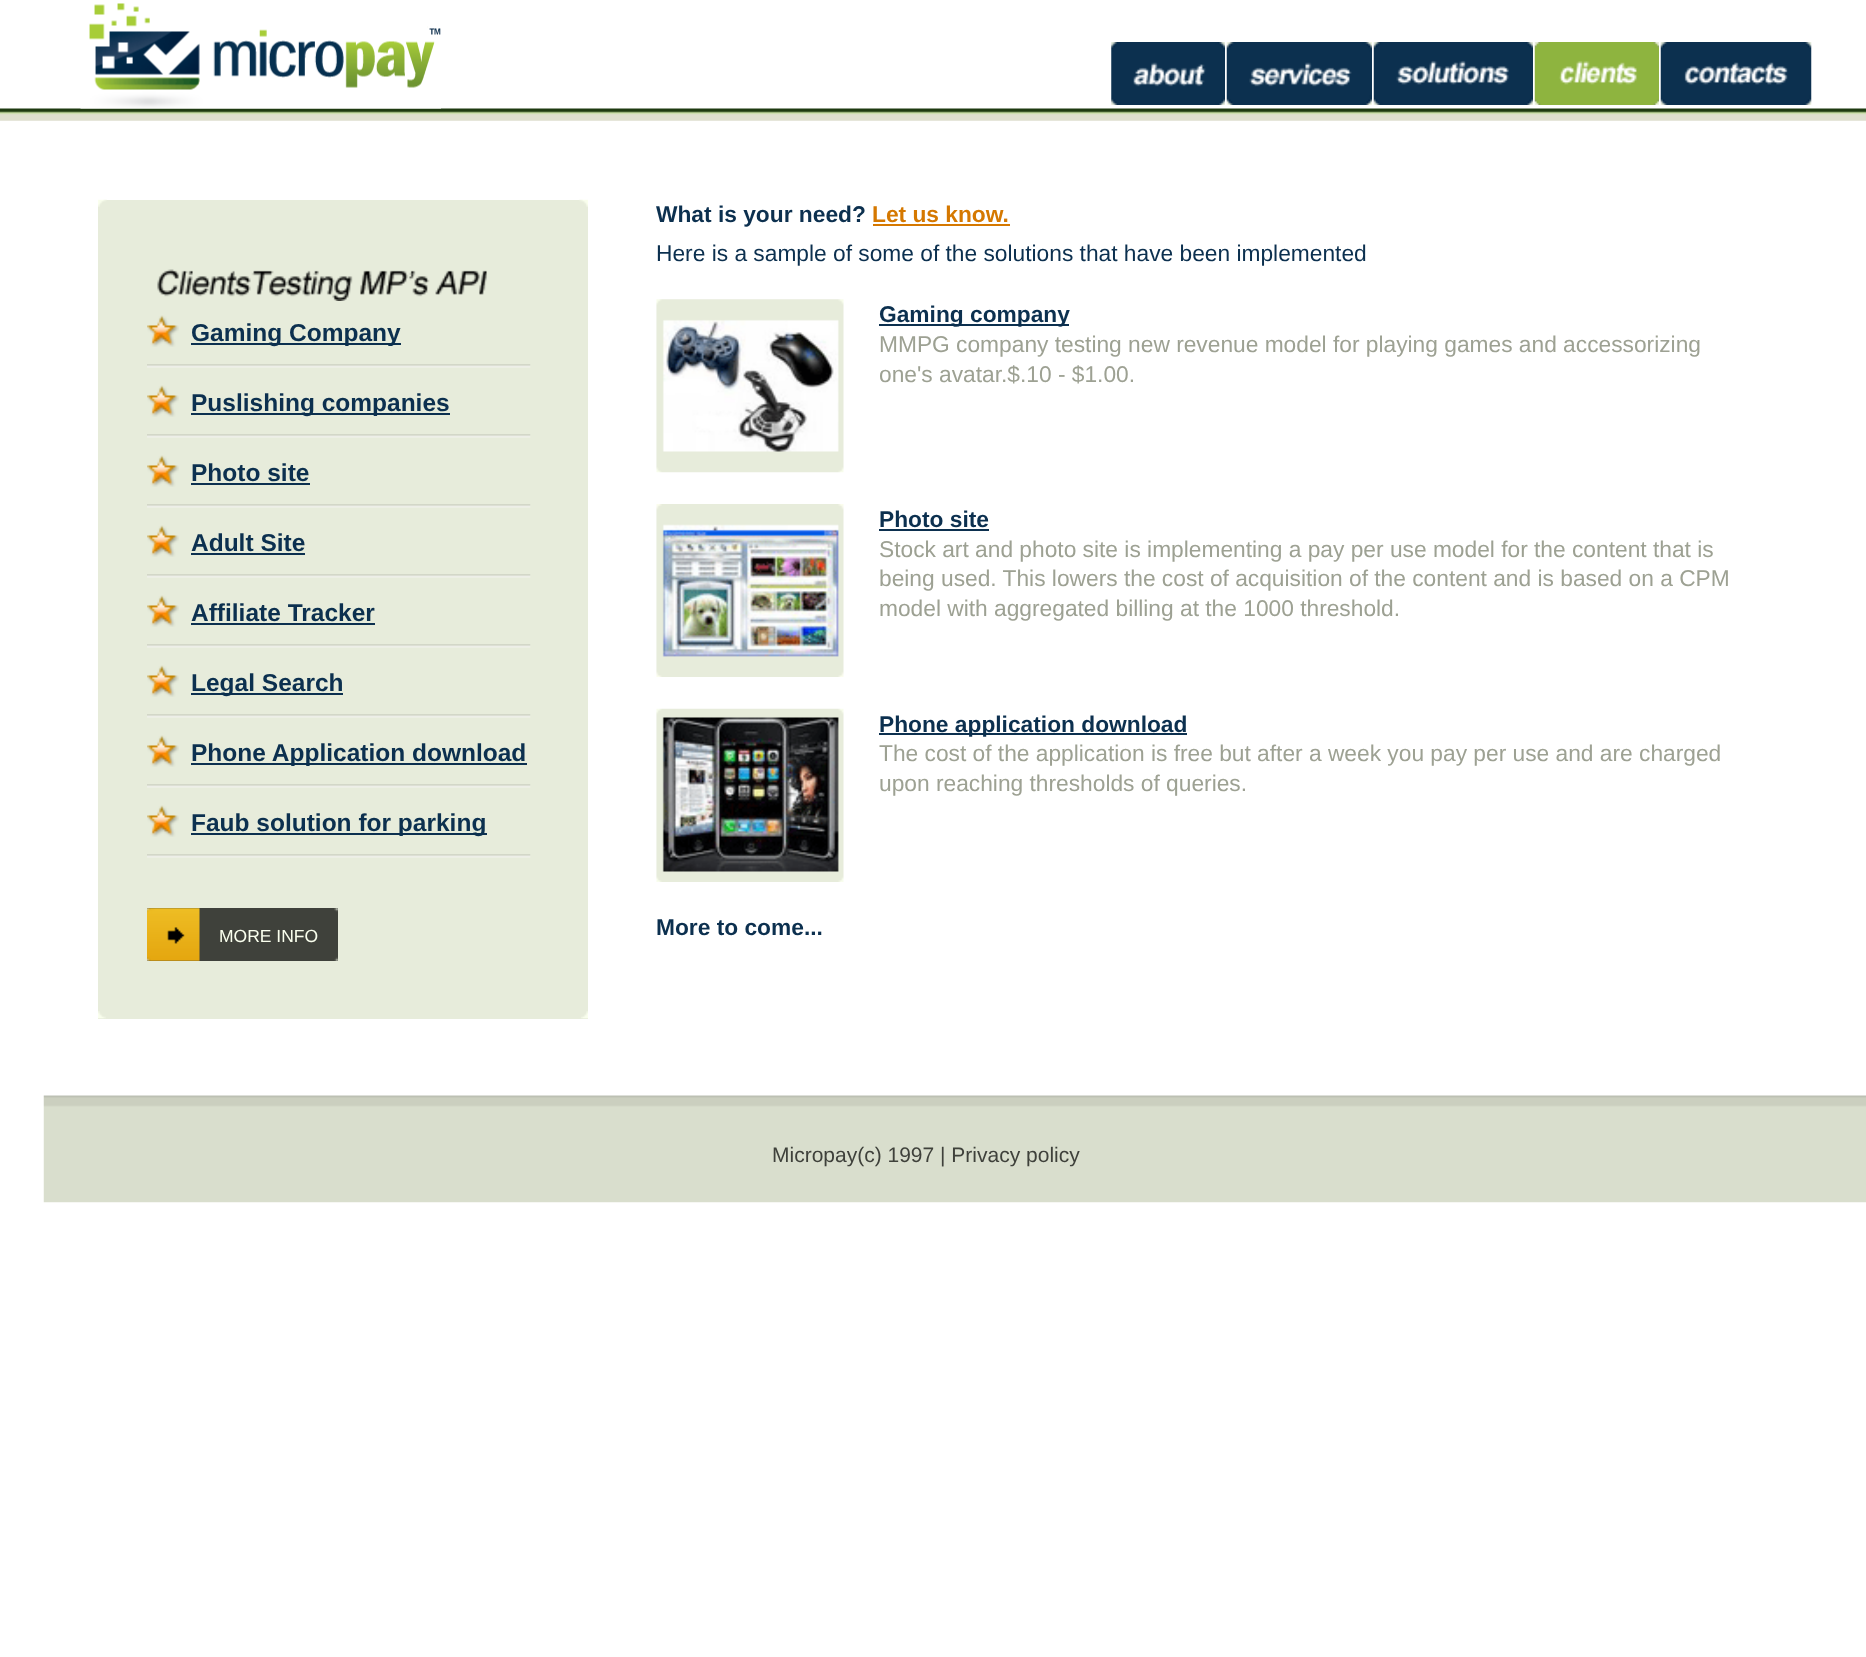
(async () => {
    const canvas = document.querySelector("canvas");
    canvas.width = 1866;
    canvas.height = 1657;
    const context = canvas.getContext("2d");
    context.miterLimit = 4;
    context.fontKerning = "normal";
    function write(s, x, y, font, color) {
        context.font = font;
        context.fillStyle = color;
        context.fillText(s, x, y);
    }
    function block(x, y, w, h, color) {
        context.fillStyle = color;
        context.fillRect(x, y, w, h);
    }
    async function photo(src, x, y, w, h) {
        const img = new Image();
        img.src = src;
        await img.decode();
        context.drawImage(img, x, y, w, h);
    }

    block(0, 0, 1866, 1657, "rgb(255, 255, 255)");
    await photo("media/1.png", 0, 108, 44, 13);
    await photo("media/2.png", 43, 1095, 1823, 108);
    await photo("media/3.png", 44, 108, 1822, 13);
    await photo("media/4.png", 80, 3, 361, 106);
    await photo("media/5.png", 1111, 42, 114, 63);
    await photo("media/6.png", 1226, 42, 146, 63);
    await photo("media/7.png", 1373, 42, 160, 63);
    await photo("media/8.png", 1534, 42, 125, 63);
    await photo("media/9.png", 1660, 42, 152, 63);
    block(98, 200, 490, 819, "rgb(231, 236, 219)");
    await photo("media/10.png", 98, 199, 9, 8);
    await photo("media/11.png", 579, 199, 9, 8);
    await photo("media/12.png", 98, 1011, 8, 8);
    await photo("media/13.png", 581, 1011, 7, 8);
    await photo("media/14.png", 157, 269, 330, 32);
    await photo("media/15.png", 147, 364, 384, 4);
    await photo("media/16.png", 147, 315, 32, 32);
    block(191, 343, 210, 2, "rgb(12, 48, 79)");
    write("Gaming Company", 191, 341, "bold 24.5px Liberation Sans", "rgb(12, 48, 79)");
    await photo("media/15.png", 147, 434, 384, 4);
    await photo("media/16.png", 147, 385, 32, 32);
    block(191, 413, 259, 2, "rgb(12, 48, 79)");
    write("Puslishing companies", 191, 411, "bold 24.5px Liberation Sans", "rgb(12, 48, 79)");
    await photo("media/15.png", 147, 504, 384, 4);
    await photo("media/16.png", 147, 455, 32, 32);
    write("Photo site", 191, 481, "bold 24.5px Liberation Sans", "rgb(12, 48, 79)");
    block(191, 483, 119, 2, "rgb(12, 48, 79)");
    await photo("media/15.png", 147, 574, 384, 4);
    await photo("media/16.png", 147, 525, 32, 32);
    write("Adult Site", 191, 551, "bold 24.5px Liberation Sans", "rgb(12, 48, 79)");
    block(191, 553, 114, 2, "rgb(12, 48, 79)");
    await photo("media/15.png", 147, 644, 384, 4);
    await photo("media/16.png", 147, 595, 32, 32);
    write("Affiliate Tracker", 191, 621, "bold 24.5px Liberation Sans", "rgb(12, 48, 79)");
    block(191, 623, 184, 2, "rgb(12, 48, 79)");
    await photo("media/15.png", 147, 714, 384, 4);
    await photo("media/16.png", 147, 665, 32, 32);
    block(191, 693, 152, 2, "rgb(12, 48, 79)");
    write("Legal Search", 191, 691, "bold 24.5px Liberation Sans", "rgb(12, 48, 79)");
    await photo("media/15.png", 147, 784, 384, 4);
    await photo("media/16.png", 147, 735, 32, 32);
    block(191, 763, 336, 2, "rgb(12, 48, 79)");
    write("Phone Application download", 191, 761, "bold 24.5px Liberation Sans", "rgb(12, 48, 79)");
    await photo("media/15.png", 147, 854, 384, 4);
    await photo("media/16.png", 147, 805, 32, 32);
    block(191, 833, 296, 2, "rgb(12, 48, 79)");
    write("Faub solution for parking", 191, 831, "bold 24.5px Liberation Sans", "rgb(12, 48, 79)");
    block(147, 908, 191, 53, "rgb(63, 65, 59)");
    await photo("media/17.png", 147, 908, 53, 53);
    await photo("media/18.png", 334, 908, 4, 53);
    write("MORE INFO", 219, 942, "17.5px Liberation Sans", "rgb(250, 255, 238)");
    write("What is your need?", 656, 222, "bold 22.75px Liberation Sans", "rgb(12, 48, 79)");
    write("Let us know.", 872, 222, "bold 22.75px Liberation Sans", "rgb(213, 120, 0)");
    block(873, 224, 137, 2, "rgb(213, 120, 0)");
    write("Here is a sample of some of the solutions that have been implemented", 656, 261, "22.75px Liberation Sans", "rgb(12, 48, 79)");
    await photo("media/19.png", 656, 299, 188, 174);
    block(879, 324, 190, 2, "rgb(12, 48, 79)");
    write("Gaming company", 879, 322, "bold 22.75px Liberation Sans", "rgb(12, 48, 79)");
    write("MMPG company testing new revenue model for playing games and accessorizing", 879, 352, "22.75px Liberation Sans", "rgb(157, 161, 147)");
    write("one's avatar.$.10 - $1.00.", 879, 382, "22.75px Liberation Sans", "rgb(157, 161, 147)");
    await photo("media/20.png", 656, 504, 188, 173);
    write("Photo site", 879, 527, "bold 22.75px Liberation Sans", "rgb(12, 48, 79)");
    block(879, 529, 110, 2, "rgb(12, 48, 79)");
    write("Stock art and photo site is implementing a pay per use model for the content that is", 879, 557, "22.75px Liberation Sans", "rgb(157, 161, 147)");
    write("being used. This lowers the cost of acquisition of the content and is based on a CPM", 879, 586, "22.75px Liberation Sans", "rgb(157, 161, 147)");
    write("model with aggregated billing at the 1000 threshold.", 879, 616, "22.75px Liberation Sans", "rgb(157, 161, 147)");
    await photo("media/21.png", 656, 708, 188, 174);
    block(879, 733, 308, 2, "rgb(12, 48, 79)");
    write("Phone application download", 879, 732, "bold 22.75px Liberation Sans", "rgb(12, 48, 79)");
    write("The cost of the application is free but after a week you pay per use and are charged", 879, 761, "22.75px Liberation Sans", "rgb(157, 161, 147)");
    write("upon reaching thresholds of queries.", 879, 791, "22.75px Liberation Sans", "rgb(157, 161, 147)");
    write("More to come...", 656, 935, "bold 22.75px Liberation Sans", "rgb(12, 48, 79)");
    write("Micropay(c) 1997 | Privacy policy", 772, 1162, "21px Liberation Sans", "rgb(63, 65, 59)");
})();
